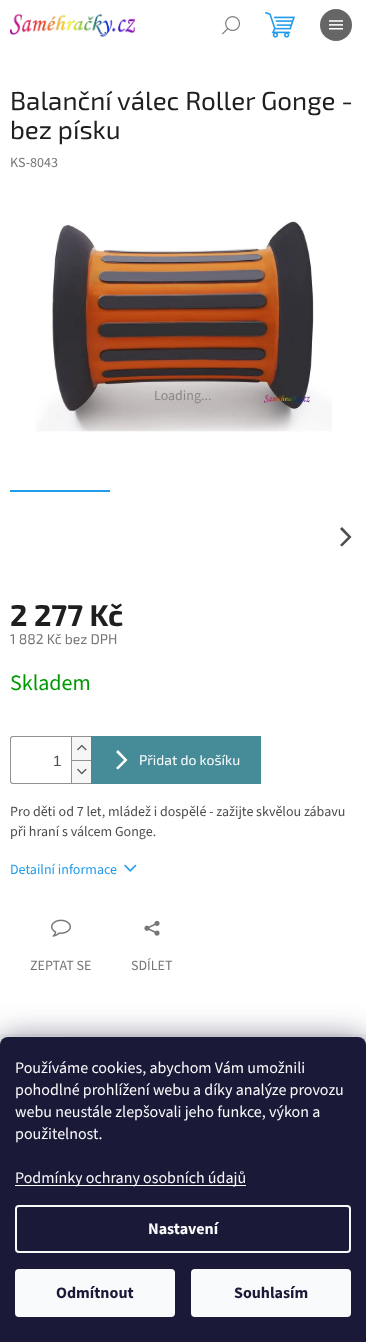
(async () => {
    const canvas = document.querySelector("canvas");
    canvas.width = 366;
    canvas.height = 1342;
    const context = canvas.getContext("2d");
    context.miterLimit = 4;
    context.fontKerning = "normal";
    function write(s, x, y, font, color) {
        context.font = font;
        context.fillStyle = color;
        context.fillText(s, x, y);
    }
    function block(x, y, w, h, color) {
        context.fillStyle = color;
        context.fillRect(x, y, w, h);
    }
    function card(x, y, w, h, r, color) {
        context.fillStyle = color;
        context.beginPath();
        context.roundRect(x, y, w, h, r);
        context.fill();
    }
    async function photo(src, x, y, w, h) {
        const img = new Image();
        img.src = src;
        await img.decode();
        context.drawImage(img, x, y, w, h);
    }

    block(0, 0, 366, 1342, "rgb(255, 255, 255)");
    await photo("media/1.png", 222, 16, 18, 19);
    context.fillStyle = "rgb(102, 102, 102)";
    context.beginPath();
    context.arc(336, 25, 16, 0, Math.PI * 2);
    context.fill();
    await photo("media/2.png", 329, 20, 14, 10);
    await photo("media/3.png", 10, 13, 125, 24);
    await photo("media/4.png", 265, 12, 30, 26);
    write("Balanční válec Roller Gonge -", 10, 110, "26px 'Exo 2'", "rgb(31, 31, 31)");
    write("bez písku", 10, 139, "26px 'Exo 2'", "rgb(31, 31, 31)");
    write("KS-8043", 10, 167, "14px 'Source Sans 3'", "rgb(118, 118, 118)");
    await photo("media/5.png", 35, 221, 297, 211);
    write("Loading...", 154, 400, "14px 'Source Sans 3'", "rgb(137, 135, 134)");
    block(10, 490, 100, 2, "rgb(35, 156, 235)");
    context.fillStyle = "rgb(77, 77, 77)";
    context.beginPath();
    context.moveTo(342, 546.5);
    context.lineTo(340, 545);
    context.lineTo(348, 537);
    context.lineTo(340, 529);
    context.lineTo(342, 527);
    context.lineTo(351.5, 537);
    context.closePath();
    context.fill();
    write("2 277 Kč", 10, 626, "bold 30px 'Exo 2'", "rgb(31, 31, 31)");
    write("1 882 Kč bez DPH", 10, 644, "14px 'Exo 2'", "rgb(118, 118, 118)");
    write("Skladem", 10, 690, "22px 'Source Sans 3'", "rgb(0, 153, 1)");
    context.fillStyle = "rgb(145, 145, 145)";
    context.beginPath();
    context.moveTo(13, 736);
    context.lineTo(91, 736);
    context.lineTo(91, 784);
    context.lineTo(13, 784);
    context.bezierCurveTo(11, 784, 10, 783, 10, 781);
    context.lineTo(10, 739);
    context.bezierCurveTo(10, 737, 11, 736, 13, 736);
    context.closePath();
    context.moveTo(13, 737);
    context.lineTo(91, 737);
    context.lineTo(91, 783);
    context.lineTo(13, 783);
    context.bezierCurveTo(12, 783, 11, 782, 11, 781);
    context.lineTo(11, 739);
    context.bezierCurveTo(11, 738, 12, 737, 13, 737);
    context.closePath();
    context.fill("evenodd");
    write("1", 53, 766, "15px Liberation Sans", "rgb(77, 77, 77)");
    block(72, 737, 19, 23, "rgb(246, 246, 246)");
    block(71, 737, 1, 23, "rgb(145, 145, 145)");
    await photo("media/6.png", 77, 744, 10, 7);
    block(72, 761, 19, 22, "rgb(246, 246, 246)");
    block(71, 760, 20, 1, "rgb(145, 145, 145)");
    block(71, 760, 1, 23, "rgb(145, 145, 145)");
    await photo("media/7.png", 77, 768, 10, 7);
    block(91, 736, 170, 48, "rgb(70, 140, 152)");
    context.fillStyle = "rgb(255, 255, 255)";
    context.beginPath();
    context.moveTo(118, 769.5);
    context.lineTo(116, 768);
    context.lineTo(124, 760);
    context.lineTo(116, 752);
    context.lineTo(118, 750);
    context.lineTo(127.5, 760);
    context.closePath();
    context.fill();
    write("Přidat do košíku", 139, 765, "14px 'Exo 2'", "rgb(255, 255, 255)");
    write("Pro děti od 7 let, mládež i dospělé - zažijte skvělou zábavu", 10, 816, "14px 'Source Sans 3'", "rgb(77, 77, 77)");
    write("při hraní s válcem Gonge.", 10, 836, "14px 'Source Sans 3'", "rgb(77, 77, 77)");
    write("Detailní informace", 10, 874, "14px 'Source Sans 3'", "rgb(35, 156, 235)");
    await photo("media/8.png", 124, 864, 13, 8);
    await photo("media/9.png", 51, 919, 20, 18);
    write("ZEPTAT SE", 30, 970, "14px 'Source Sans 3'", "rgb(118, 118, 118)");
    await photo("media/10.png", 144, 920, 16, 16);
    write("SDÍLET", 131, 970, "14px 'Source Sans 3'", "rgb(118, 118, 118)");
    block(0, 1034, 366, 11, "rgb(246, 246, 246)");
    block(20, 1036, 46, 1, "rgb(255, 255, 255)");
    context.fillStyle = "rgba(27, 25, 57, 0.5)";
    context.filter = "blur(15px)";
    context.beginPath();
    context.roundRect(0, 1037, 366, 305, 8);
    context.fill();
    context.filter = "none";
    context.fillStyle = "rgb(26, 25, 55)";
    context.beginPath();
    context.roundRect(0, 1037, 366, 305, [8, 8, 0, 0]);
    context.fill();
    write("Používáme cookies, abychom Vám umožnili", 15, 1073, "16px 'Source Sans 3'", "rgb(248, 250, 251)");
    write("pohodlné prohlížení webu a díky analýze provozu", 15, 1095, "16px 'Source Sans 3'", "rgb(248, 250, 251)");
    write("webu neustále zlepšovali jeho funkce, výkon a", 15, 1117, "16px 'Source Sans 3'", "rgb(248, 250, 251)");
    write("použitelnost.", 15, 1139, "16px 'Source Sans 3'", "rgb(248, 250, 251)");
    block(15, 1185, 231, 1, "rgb(248, 250, 251)");
    write("Podmínky ochrany osobních údajů", 15, 1183, "16px 'Source Sans 3'", "rgb(248, 250, 251)");
    context.beginPath();
    context.roundRect(16, 1206, 334, 46, 3);
    context.strokeStyle = "rgb(248, 250, 251)";
    context.lineWidth = 2;
    context.stroke();
    write("Nastavení", 148, 1234, "bold 16px 'Source Sans 3'", "rgb(248, 250, 251)");
    card(15, 1269, 160, 48, 4, "rgb(248, 250, 251)");
    write("Odmítnout", 56, 1298, "bold 16px 'Source Sans 3'", "rgb(26, 25, 55)");
    card(191, 1269, 160, 48, 4, "rgb(248, 250, 251)");
    write("Souhlasím", 234, 1298, "bold 16px 'Source Sans 3'", "rgb(26, 25, 55)");
})();
